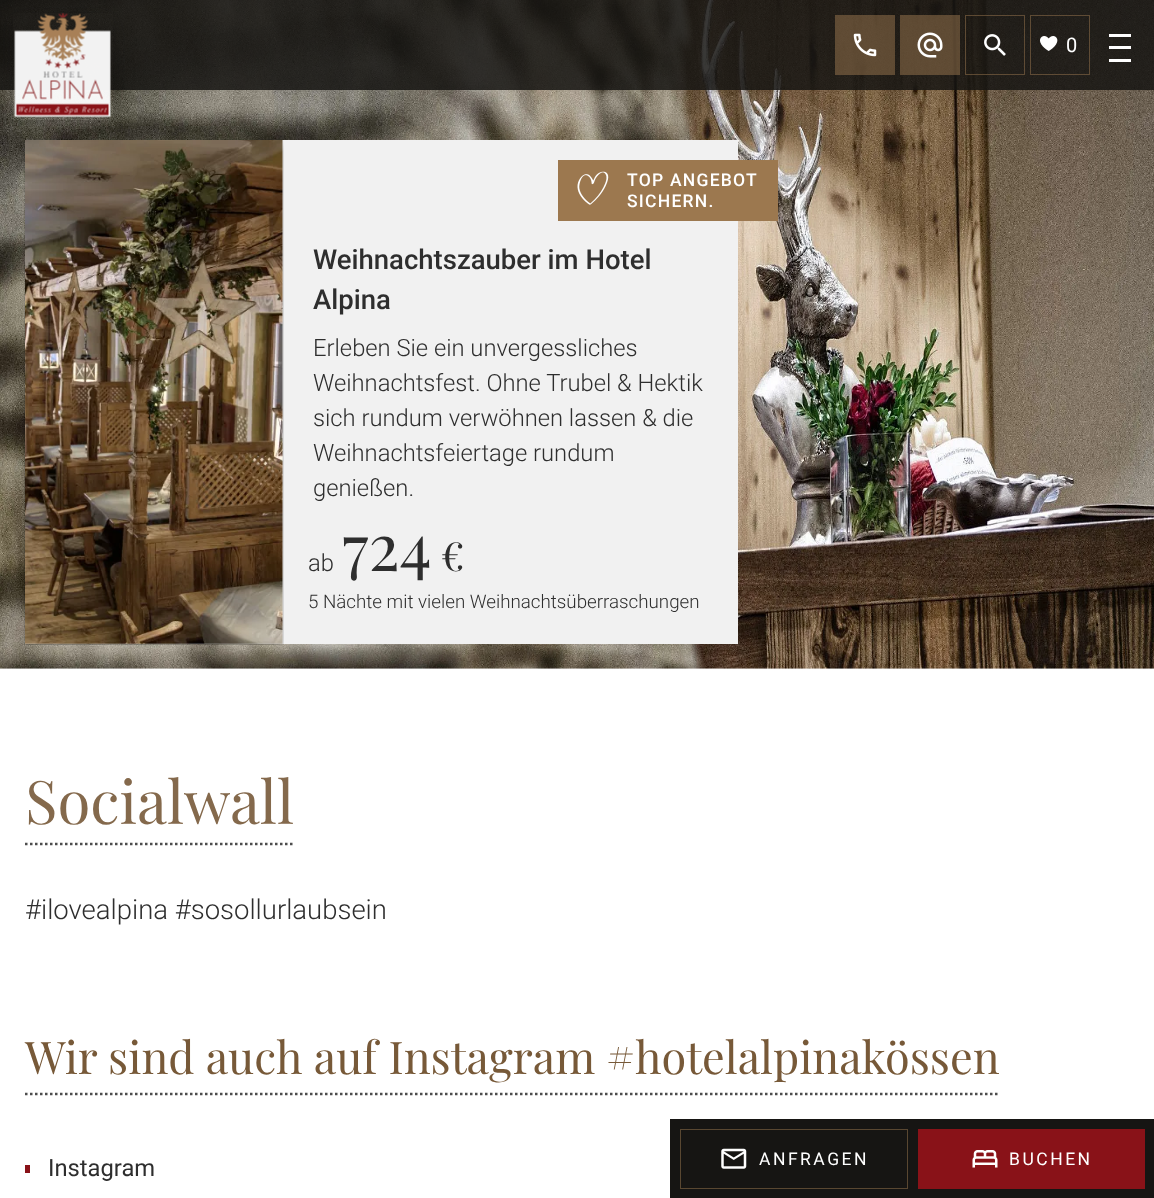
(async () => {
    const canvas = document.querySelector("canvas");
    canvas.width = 1154;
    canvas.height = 1198;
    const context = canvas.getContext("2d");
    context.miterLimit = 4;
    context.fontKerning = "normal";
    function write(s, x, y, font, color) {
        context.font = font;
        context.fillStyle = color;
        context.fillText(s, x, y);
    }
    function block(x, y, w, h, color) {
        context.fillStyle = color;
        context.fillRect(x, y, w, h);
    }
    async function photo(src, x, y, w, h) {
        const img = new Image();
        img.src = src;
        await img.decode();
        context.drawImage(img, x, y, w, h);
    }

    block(0, 0, 1154, 1198, "rgb(255, 255, 255)");
    await photo("media/6.png", 0, 0, 1154, 669);
    block(0, 0, 1154, 90, "rgba(22, 21, 19, 0.85)");
    block(25, 140, 713, 504, "rgb(241, 241, 241)");
    await photo("media/7.png", 24, 140, 260, 505);
    context.save();
    context.beginPath();
    context.moveTo(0, 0);
    context.lineTo(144, 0);
    context.lineTo(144, 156);
    context.lineTo(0, 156);
    context.closePath();
    context.moveTo(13, 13);
    context.lineTo(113, 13);
    context.lineTo(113, 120);
    context.lineTo(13, 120);
    context.closePath();
    context.clip("evenodd");
    context.fillStyle = "rgba(0, 0, 0, 0.25)";
    context.filter = "blur(10px)";
    context.beginPath();
    context.rect(13, 18, 100, 107);
    context.fill();
    context.filter = "none";
    context.restore();
    await photo("media/1.png", 14, 12, 97, 107);
    block(835, 15, 60, 60, "rgba(156, 120, 79, 0.5)");
    await photo("media/2.png", 853, 33, 24, 24);
    block(900, 15, 60, 60, "rgba(156, 120, 79, 0.5)");
    await photo("media/3.png", 917, 32, 26, 26);
    context.strokeStyle = "rgba(156, 120, 79, 0.5)";
    context.strokeRect(965.5, 15.5, 59, 59);
    await photo("media/4.png", 984, 34, 22, 22);
    context.strokeRect(1030.5, 15.5, 59, 59);
    await photo("media/5.png", 1040, 36, 18, 15);
    context.letterSpacing = "2.5px";
    write("0", 1066, 52, "20px Roboto", "rgb(255, 255, 255)");
    block(1109, 46, 22, 3, "rgb(255, 255, 255)");
    block(1109, 34, 22, 3, "rgb(255, 255, 255)");
    block(1109, 59, 22, 3, "rgb(255, 255, 255)");
    block(558, 160, 220, 61, "rgb(156, 120, 79)");
    await photo("media/8.png", 577, 171, 32, 34);
    context.letterSpacing = "1.25px";
    write("TOP ANGEBOT", 627, 186, "500 17.5px Roboto", "rgb(255, 255, 255)");
    write("SICHERN.", 627, 207, "500 17.5px Roboto", "rgb(255, 255, 255)");
    context.letterSpacing = "0px";
    write("Weihnachtszauber im Hotel", 313, 269, "500 27.5px Roboto", "rgb(46, 46, 46)");
    write("Alpina", 313, 309, "500 27.5px Roboto", "rgb(46, 46, 46)");
    write("Erleben Sie ein unvergessliches", 313, 356, "300 23.75px Roboto", "rgb(46, 46, 46)");
    write("Weihnachtsfest. Ohne Trubel & Hektik", 313, 391, "300 23.75px Roboto", "rgb(46, 46, 46)");
    write("sich rundum verwöhnen lassen & die", 313, 426, "300 23.75px Roboto", "rgb(46, 46, 46)");
    write("Weihnachtsfeiertage rundum", 313, 461, "300 23.75px Roboto", "rgb(46, 46, 46)");
    write("genießen.", 313, 496, "300 23.75px Roboto", "rgb(46, 46, 46)");
    write("ab", 308, 571, "300 23.75px Roboto", "rgb(46, 46, 46)");
    write("724", 342, 571, "65px Playfair Display", "rgb(46, 46, 46)");
    write("€", 441, 571, "40px Playfair Display", "rgb(46, 46, 46)");
    write("5 Nächte mit vielen Weihnachtsüberraschungen", 308, 608, "300 18.75px Roboto", "rgb(46, 46, 46)");
    context.beginPath();
    context.moveTo(25, 844);
    context.lineTo(294, 844);
    context.strokeStyle = "rgb(77, 77, 77)";
    context.lineWidth = 2.5;
    context.setLineDash([2.5, 2.5]);
    context.stroke();
    write("Socialwall", 25, 824, "60px Playfair Display", "rgb(132, 105, 76)");
    write("#ilovealpina #sosollurlaubsein", 25, 919, "300 27.5px Roboto", "rgb(46, 46, 46)");
    context.beginPath();
    context.moveTo(25, 1094);
    context.lineTo(1000, 1094);
    context.stroke();
    write("Wir sind auch auf Instagram #hotelalpinakössen", 25, 1074, "45px Playfair Display", "rgb(119, 89, 56)");
    block(25, 1165, 5, 8, "rgb(137, 18, 24)");
    write("Instagram", 48, 1176, "23.75px Roboto", "rgb(46, 46, 46)");
    block(670, 1119, 484, 79, "rgb(22, 21, 19)");
    context.strokeStyle = "rgb(89, 71, 49)";
    context.lineWidth = 1;
    context.setLineDash([]);
    context.strokeRect(680.5, 1129.5, 227, 59);
    await photo("media/9.png", 721, 1148, 26, 21);
    context.letterSpacing = "2.5px";
    write("ANFRAGEN", 759, 1165, "17.5px Roboto", "rgb(255, 255, 255)");
    block(918, 1129, 227, 60, "rgb(137, 18, 24)");
    await photo("media/10.png", 972, 1150, 26, 18);
    write("BUCHEN", 1009, 1165, "17.5px Roboto", "rgb(255, 255, 255)");
})();
